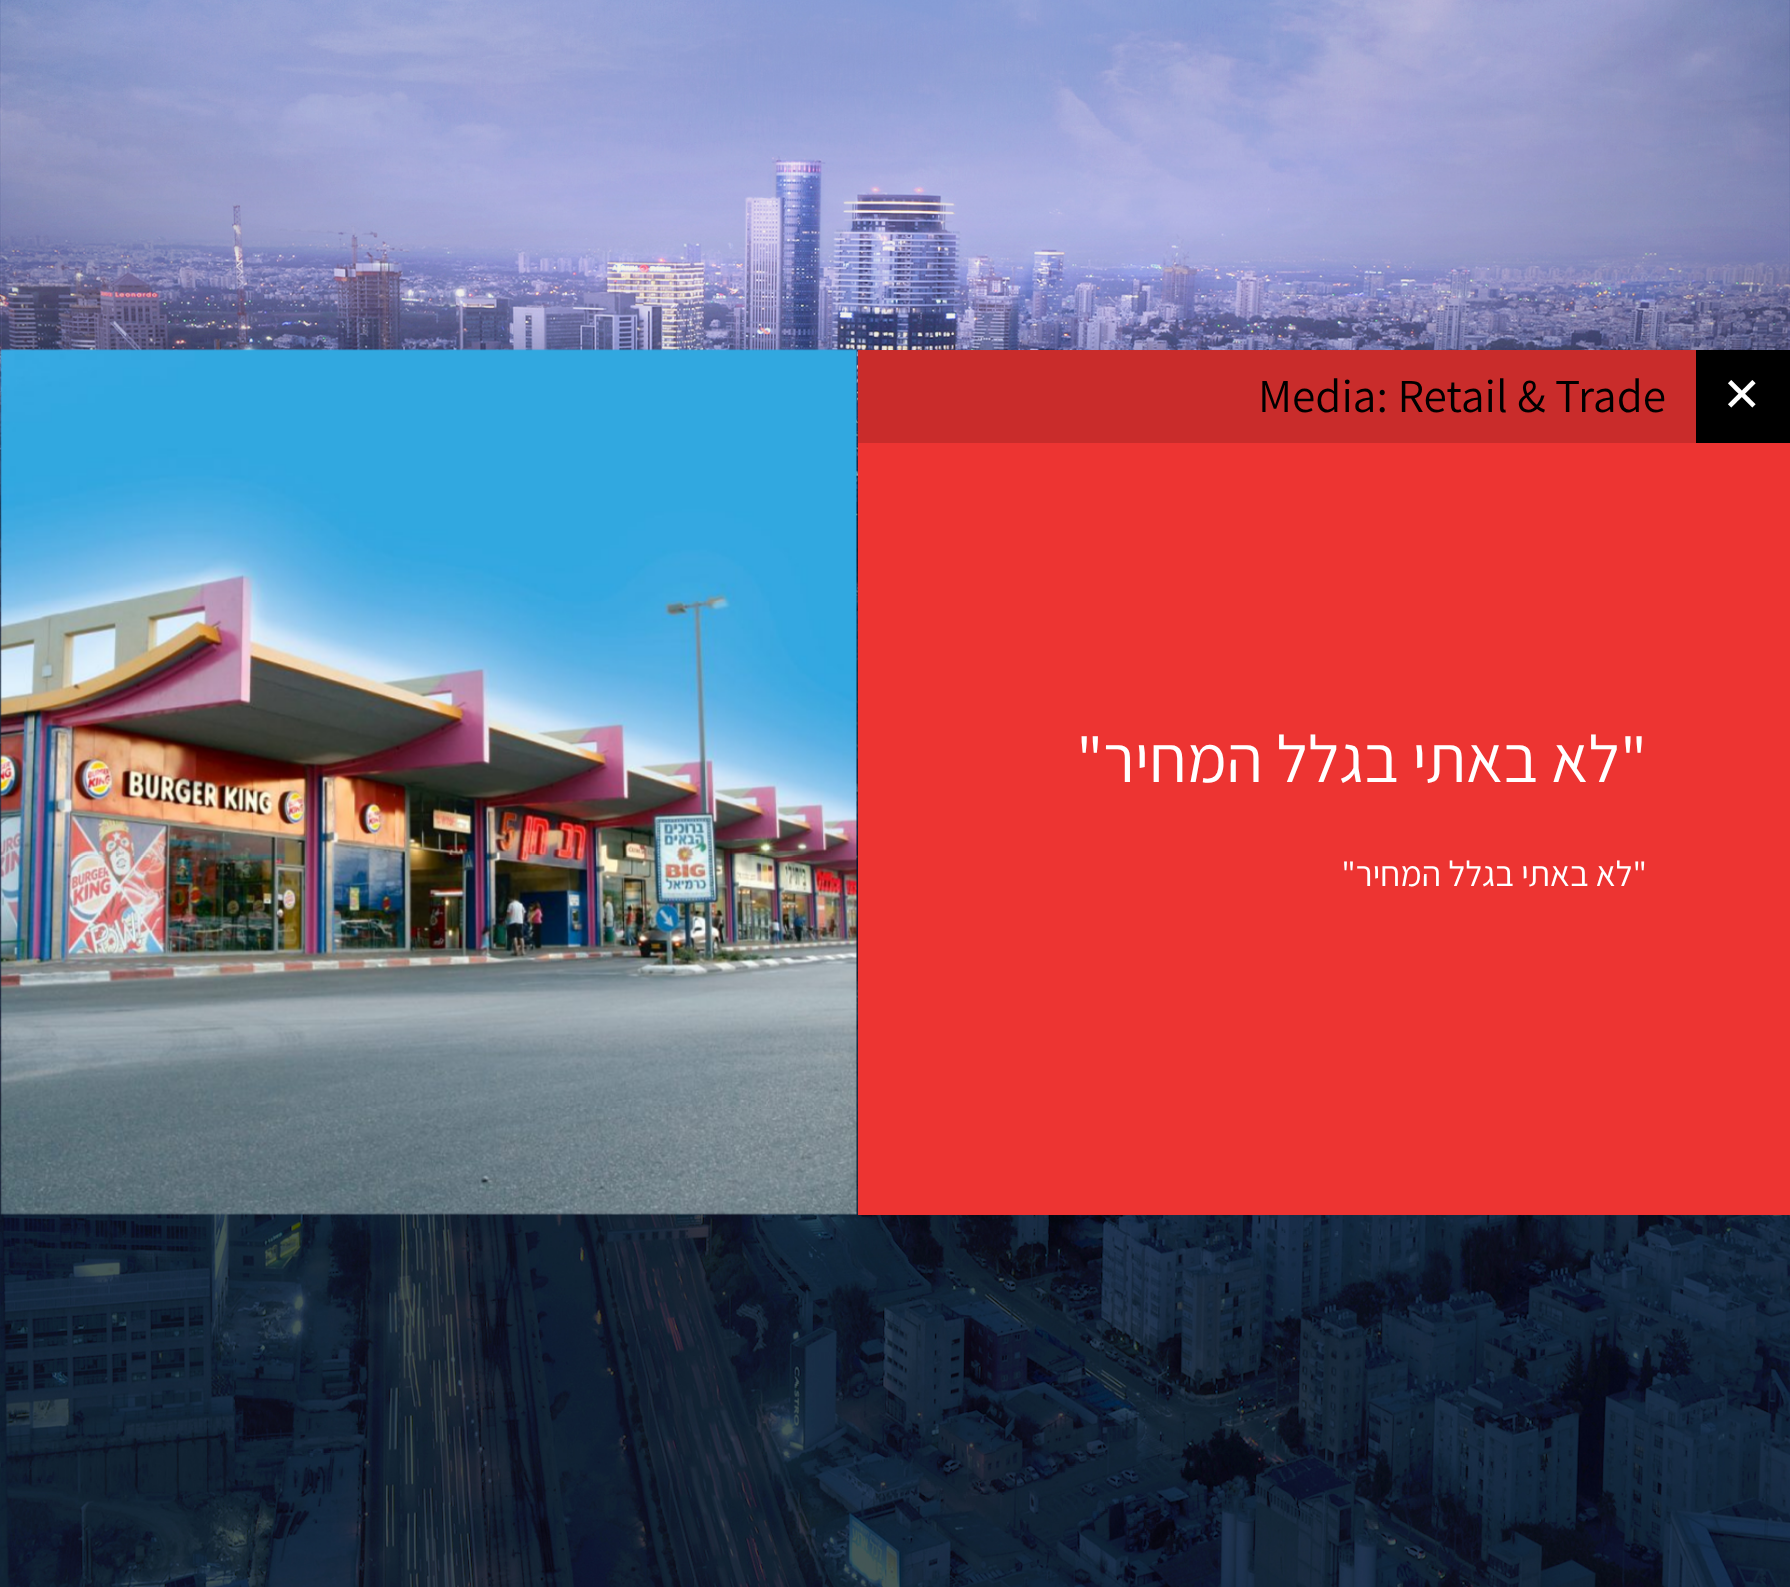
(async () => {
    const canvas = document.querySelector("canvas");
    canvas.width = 1790;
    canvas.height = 1587;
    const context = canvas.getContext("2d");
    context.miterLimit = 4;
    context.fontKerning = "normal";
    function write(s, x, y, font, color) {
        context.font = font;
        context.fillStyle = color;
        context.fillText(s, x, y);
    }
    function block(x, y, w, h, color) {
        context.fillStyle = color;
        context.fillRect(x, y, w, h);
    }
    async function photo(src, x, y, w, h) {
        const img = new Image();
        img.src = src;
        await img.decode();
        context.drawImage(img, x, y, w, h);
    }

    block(0, 0, 1790, 1587, "rgb(255, 255, 255)");
    await photo("media/1.png", 0, 0, 1790, 1587);
    block(858, 443, 932, 772, "rgb(237, 52, 50)");
    block(858, 350, 838, 93, "rgb(201, 44, 43)");
    block(1696, 350, 94, 93, "rgb(0, 0, 0)");
    write("✕", 1722, 411, "47.25px DejaVu Sans", "rgb(255, 255, 255)");
    write("Media: Retail & Trade", 1258, 412, "47.25px Assistant", "rgb(0, 0, 0)");
    context.direction = "rtl";
    write("\"לא באתי בגלל המחיר\"", 1647, 782, "66.25px Assistant", "rgb(255, 255, 255)");
    write("\"לא באתי בגלל המחיר\"", 1647, 886, "35.5px Assistant", "rgb(255, 255, 255)");
    await photo("media/2.png", 0, 349, 858, 866);
})();
